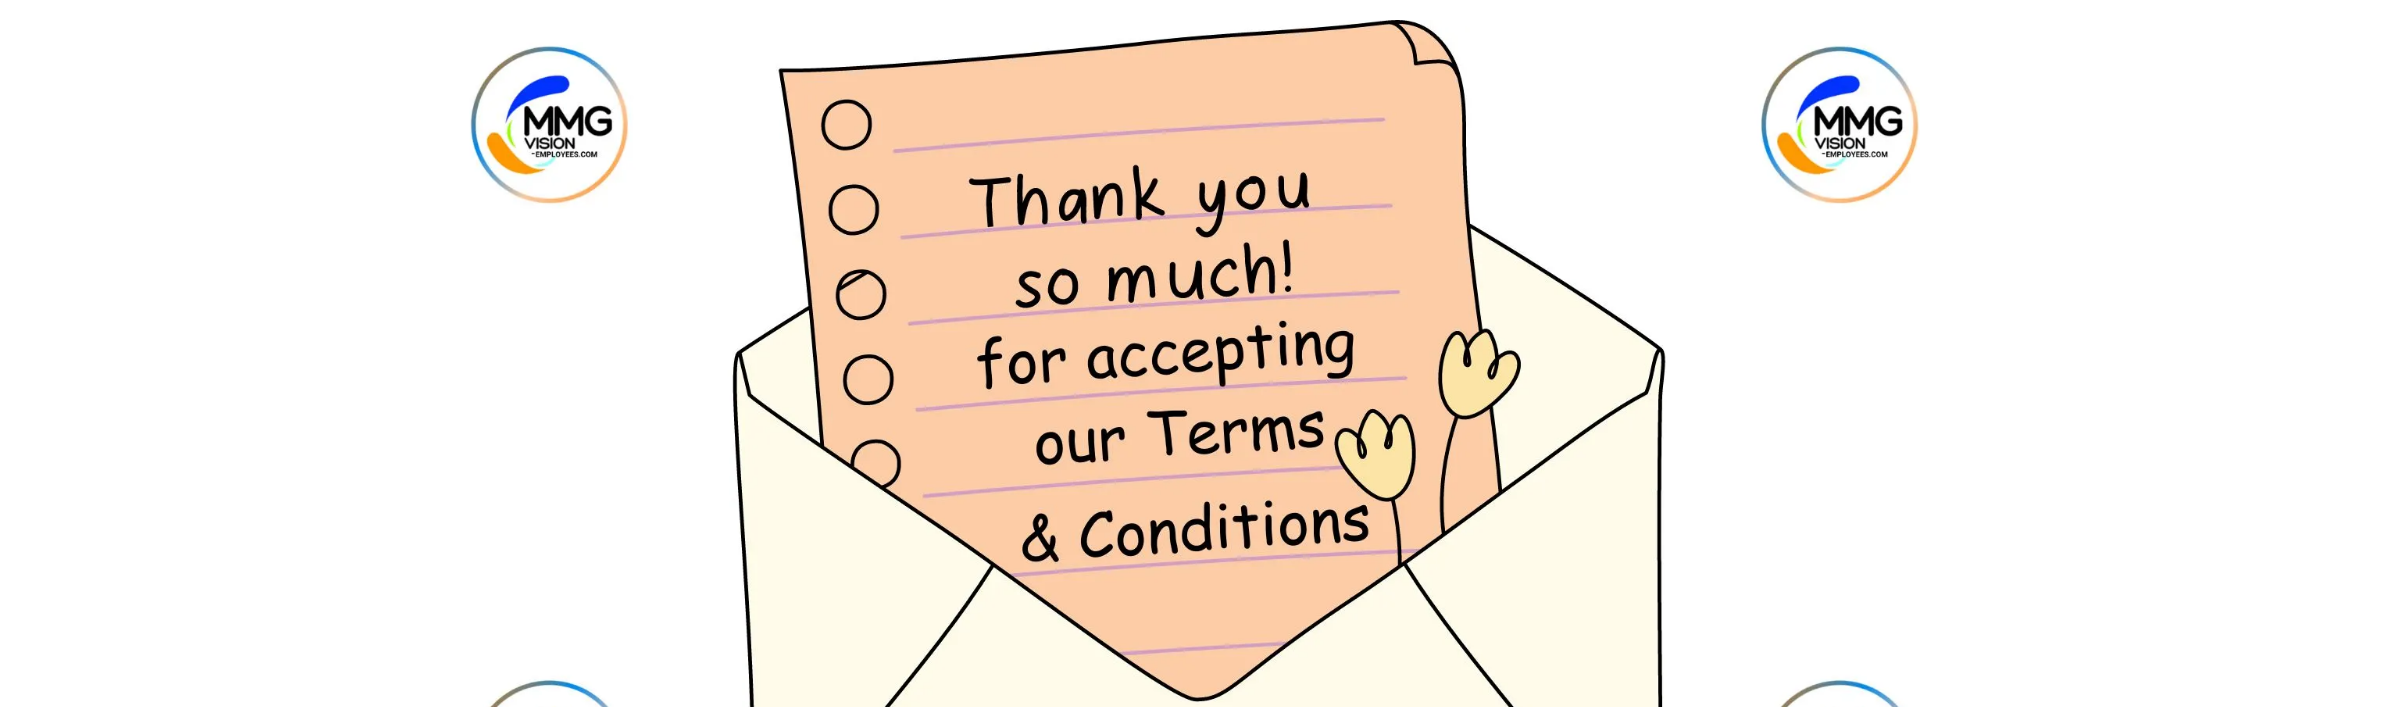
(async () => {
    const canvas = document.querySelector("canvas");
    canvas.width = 2389;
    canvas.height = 707;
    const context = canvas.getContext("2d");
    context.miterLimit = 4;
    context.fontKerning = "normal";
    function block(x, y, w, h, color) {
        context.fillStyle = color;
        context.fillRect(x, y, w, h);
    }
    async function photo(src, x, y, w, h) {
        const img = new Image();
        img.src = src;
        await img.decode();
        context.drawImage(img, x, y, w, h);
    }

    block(0, 0, 2389, 707, "rgb(255, 255, 255)");
    await photo("media/1.png", 469, 20, 1451, 687);
})();
